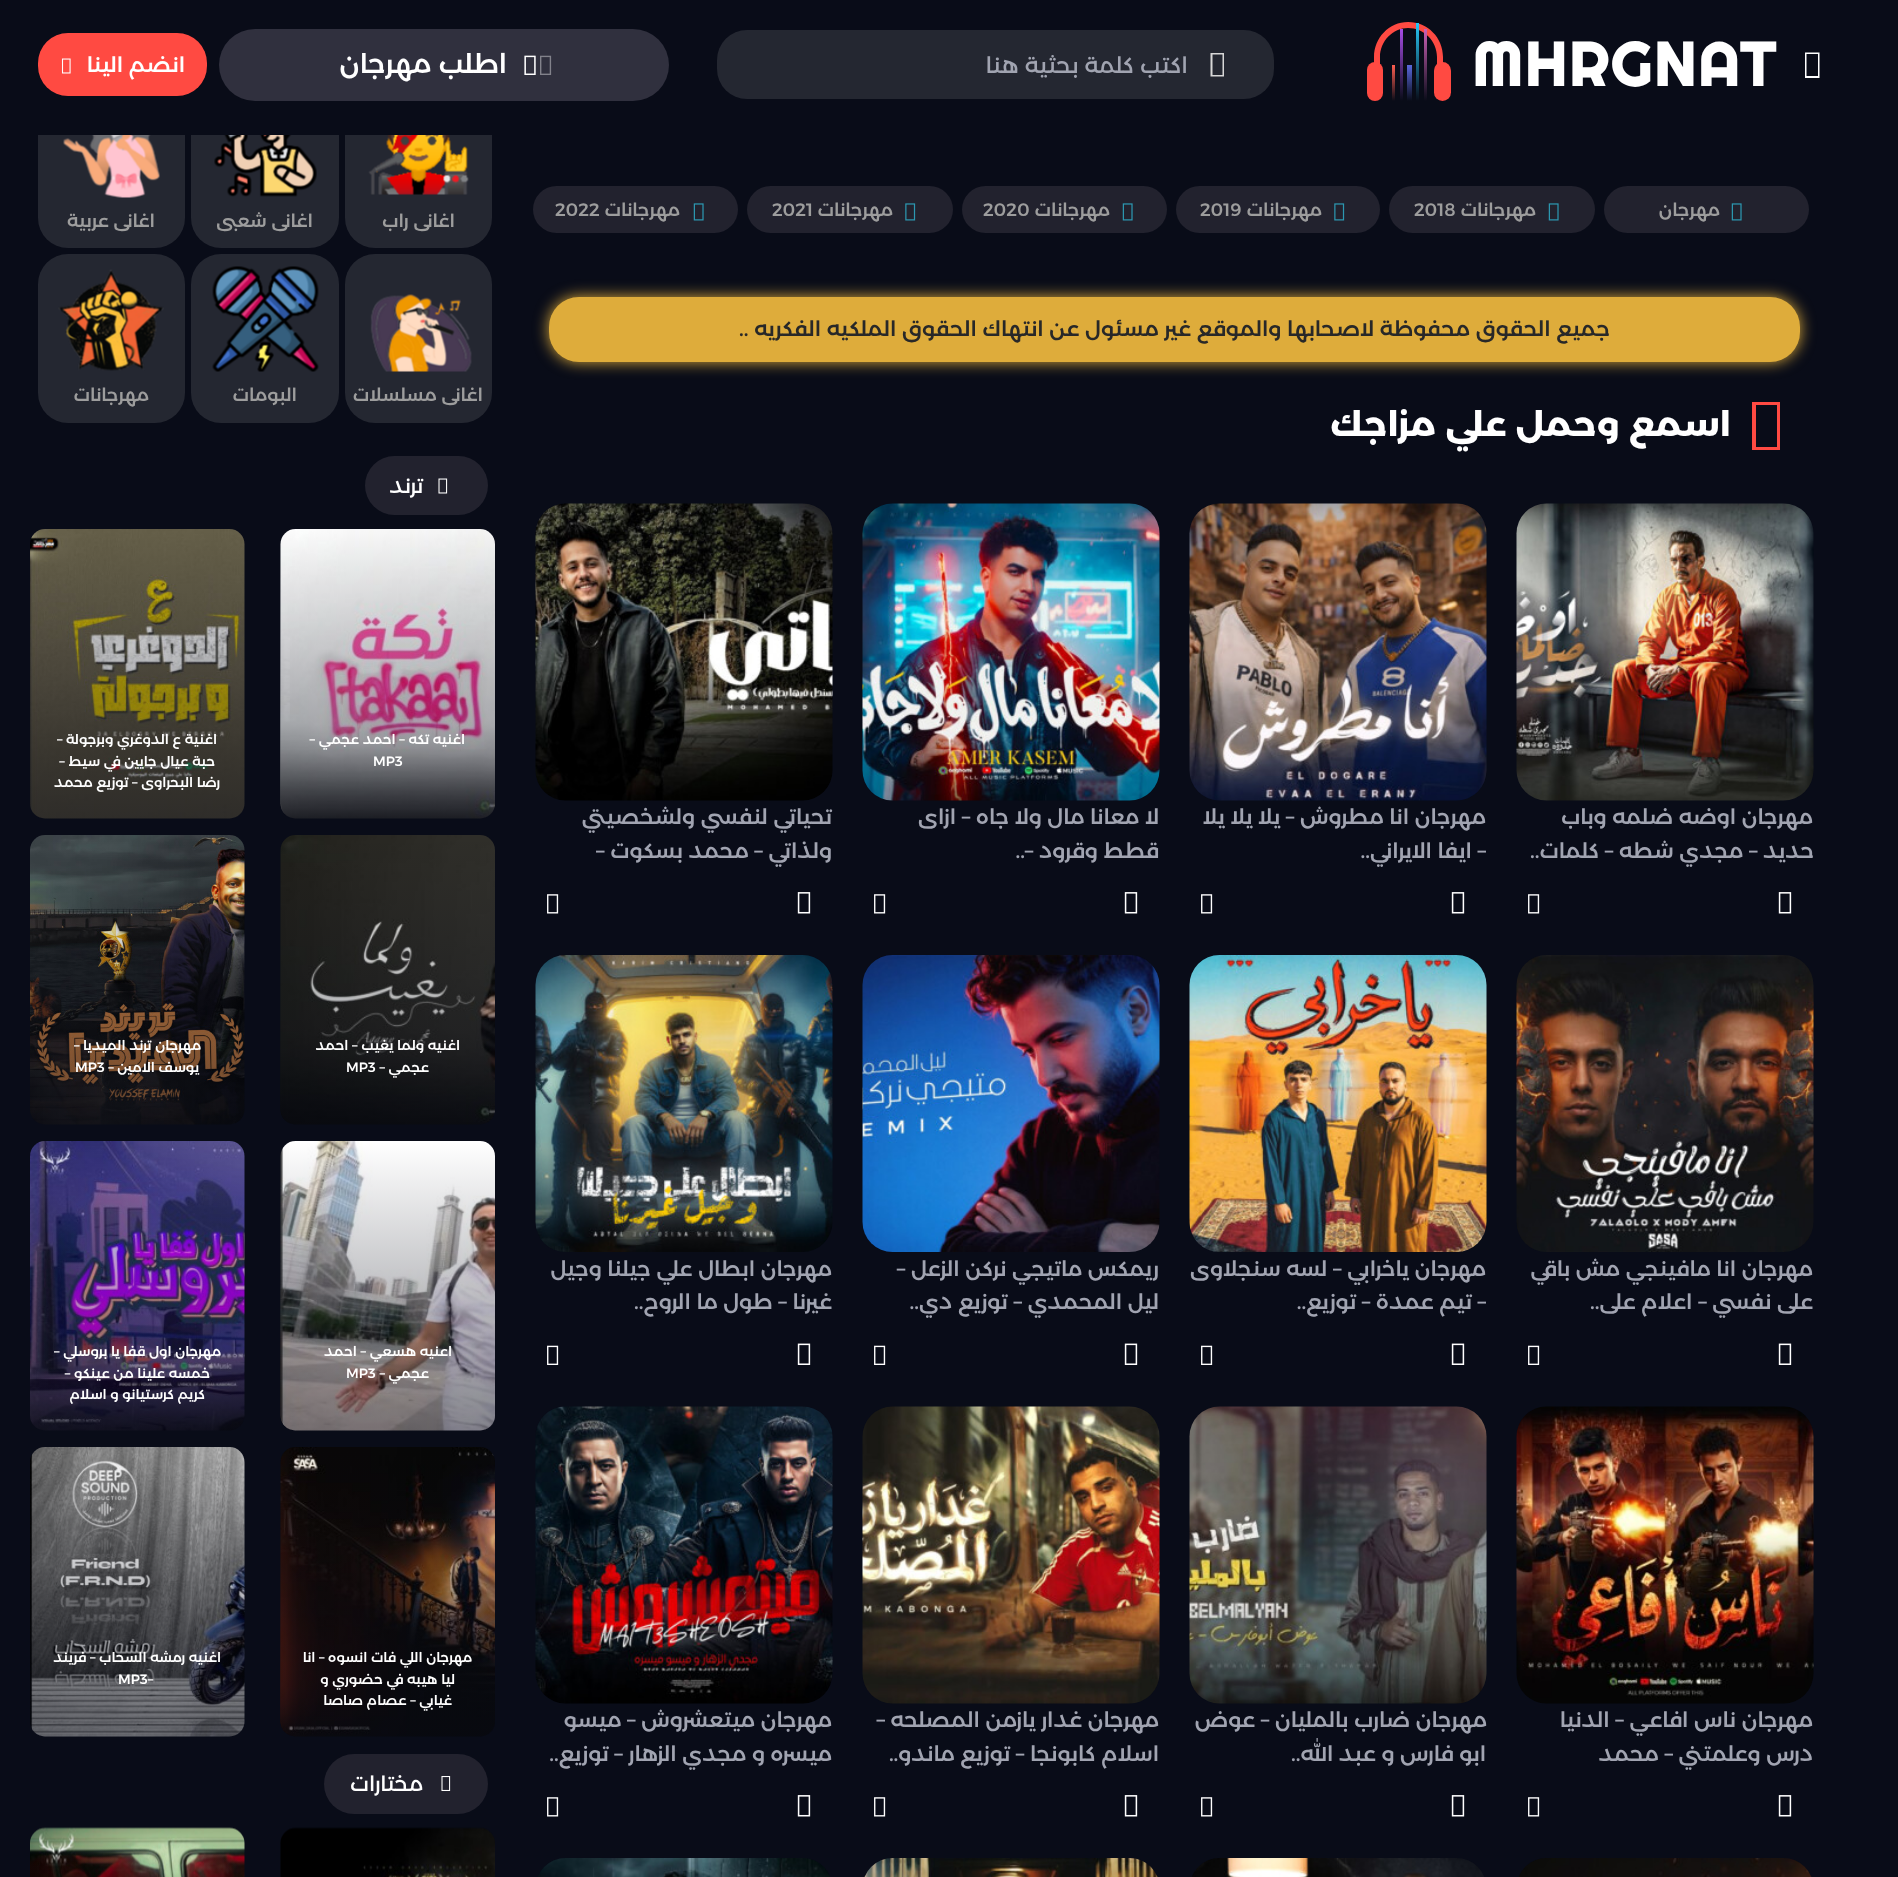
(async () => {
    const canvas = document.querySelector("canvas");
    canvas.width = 1898;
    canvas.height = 1877;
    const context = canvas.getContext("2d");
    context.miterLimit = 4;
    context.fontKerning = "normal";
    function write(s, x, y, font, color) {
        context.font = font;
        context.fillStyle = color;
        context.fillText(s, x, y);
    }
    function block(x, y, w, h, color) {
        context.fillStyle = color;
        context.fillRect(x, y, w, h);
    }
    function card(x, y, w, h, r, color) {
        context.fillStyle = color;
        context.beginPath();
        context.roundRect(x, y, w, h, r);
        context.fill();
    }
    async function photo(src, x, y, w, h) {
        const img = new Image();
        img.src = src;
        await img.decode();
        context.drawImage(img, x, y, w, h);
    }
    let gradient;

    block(0, 0, 1898, 1877, "rgb(9, 12, 24)");
    card(345, 80, 147, 168, 30, "rgb(36, 39, 49)");
    card(191, 80, 148, 168, 30, "rgb(36, 39, 49)");
    card(38, 80, 147, 168, 30, "rgb(36, 39, 49)");
    block(38, 80, 454, 55, "rgb(9, 12, 24)");
    context.fillStyle = "rgb(255, 255, 255)";
    context.beginPath();
    context.moveTo(1805, 78);
    context.lineTo(1805, 52.5);
    context.lineTo(1819.5, 52.5);
    context.lineTo(1819.5, 78);
    context.closePath();
    context.moveTo(1806.5, 76);
    context.lineTo(1818, 76);
    context.lineTo(1818, 54);
    context.lineTo(1806.5, 54);
    context.closePath();
    context.fill();
    context.letterSpacing = "2.25px";
    write("MHRGNAT", 1472, 86, "bold 61px Righteous", "rgb(255, 255, 255)");
    context.fillStyle = "rgb(255, 74, 66)";
    context.beginPath();
    context.moveTo(1408, 22);
    context.bezierCurveTo(1428, 22, 1443, 38, 1443, 57);
    context.lineTo(1443, 76);
    context.lineTo(1374, 76);
    context.lineTo(1374, 57);
    context.bezierCurveTo(1374, 38, 1389, 22, 1408, 22);
    context.closePath();
    context.moveTo(1408, 28);
    context.bezierCurveTo(1424, 28, 1437, 41, 1437, 57);
    context.lineTo(1437, 76);
    context.lineTo(1380, 76);
    context.lineTo(1380, 57);
    context.bezierCurveTo(1380, 41, 1393, 28, 1408, 28);
    context.closePath();
    context.fill("evenodd");
    card(1434, 62, 17, 39, 8.5, "rgb(255, 74, 66)");
    gradient = context.createLinearGradient(1425, 101, 1425, 29);
    gradient.addColorStop(0, "rgb(9, 12, 24)");
    gradient.addColorStop(1, "rgb(204, 96, 181)");
    context.fillStyle = gradient;
    context.fillRect(1424, 29, 3, 72);
    gradient = context.createLinearGradient(1418, 101, 1418, 23);
    gradient.addColorStop(0, "rgb(9, 12, 24)");
    gradient.addColorStop(1, "rgb(39, 200, 248)");
    context.fillStyle = gradient;
    context.fillRect(1416, 23, 3, 78);
    gradient = context.createLinearGradient(1409, 101, 1409, 65);
    gradient.addColorStop(0, "rgb(9, 12, 24)");
    gradient.addColorStop(1, "rgb(89, 104, 220)");
    context.fillStyle = gradient;
    context.fillRect(1407, 65, 5, 36);
    gradient = context.createLinearGradient(1401, 101, 1401, 29);
    gradient.addColorStop(0, "rgb(9, 12, 24)");
    gradient.addColorStop(1, "rgb(166, 77, 230)");
    context.fillStyle = gradient;
    context.fillRect(1400, 29, 3, 72);
    gradient = context.createLinearGradient(1394, 101, 1394, 65);
    gradient.addColorStop(0, "rgb(9, 12, 24)");
    gradient.addColorStop(1, "rgb(255, 94, 80)");
    context.fillStyle = gradient;
    context.fillRect(1392, 65, 3, 36);
    card(1367, 62, 16, 39, 8, "rgb(255, 74, 66)");
    card(717, 30, 557, 69, 30, "rgb(36, 39, 49)");
    context.fillStyle = "rgb(215, 215, 215)";
    context.beginPath();
    context.moveTo(1210.5, 76.5);
    context.lineTo(1210.5, 53);
    context.lineTo(1224, 53);
    context.lineTo(1224, 76.5);
    context.closePath();
    context.moveTo(1212.5, 75);
    context.lineTo(1222.5, 75);
    context.lineTo(1222.5, 54.5);
    context.lineTo(1212.5, 54.5);
    context.closePath();
    context.fill();
    context.letterSpacing = "0px";
    context.direction = "rtl";
    write("اكتب كلمة بحثية هنا", 1188, 73, "22.5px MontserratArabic", "rgb(161, 164, 177)");
    card(219, 29, 450, 72, 36, "rgb(48, 48, 62)");
    await photo("media/1.png", 524, 55, 12, 20);
    await photo("media/2.png", 524, 55, 28, 20);
    write("اطلب مهرجان", 507, 73, "500 27px MontserratArabic", "rgb(255, 255, 255)");
    card(38, 33, 169, 63, 30, "rgb(255, 74, 66)");
    write("انضم الينا", 185, 72, "500 21px MontserratArabic", "rgb(255, 255, 255)");
    await photo("media/3.png", 61, 58, 10, 16);
    card(1604, 186, 205, 47, 23.5, "rgb(34, 34, 46)");
    await photo("media/4.png", 1731, 203, 11, 18);
    write("مهرجان", 1720, 216, "500 18px MontserratArabic", "rgb(157, 157, 157)");
    card(1389, 186, 206, 47, 23.5, "rgb(34, 34, 46)");
    await photo("media/4.png", 1548, 203, 11, 18);
    write("مهرجانات", 1536, 216, "500 18px MontserratArabic", "rgb(157, 157, 157)");
    context.direction = "ltr";
    write("2018", 1414, 216, "500 18px MontserratArabic", "rgb(157, 157, 157)");
    card(1176, 186, 204, 47, 23.5, "rgb(34, 34, 46)");
    await photo("media/5.png", 1334, 203, 11, 18);
    context.direction = "rtl";
    write("مهرجانات", 1322, 216, "500 18px MontserratArabic", "rgb(157, 157, 157)");
    context.direction = "ltr";
    write("2019", 1200, 216, "500 18px MontserratArabic", "rgb(157, 157, 157)");
    card(962, 186, 205, 47, 23.5, "rgb(34, 34, 46)");
    await photo("media/4.png", 1122, 203, 11, 18);
    context.direction = "rtl";
    write("مهرجانات", 1110, 216, "500 18px MontserratArabic", "rgb(157, 157, 157)");
    context.direction = "ltr";
    write("2020", 983, 216, "500 18px MontserratArabic", "rgb(157, 157, 157)");
    card(747, 186, 206, 47, 23.5, "rgb(34, 34, 46)");
    await photo("media/5.png", 905, 203, 11, 18);
    context.direction = "rtl";
    write("مهرجانات", 893, 216, "500 18px MontserratArabic", "rgb(157, 157, 157)");
    context.direction = "ltr";
    write("2021", 772, 216, "500 18px MontserratArabic", "rgb(157, 157, 157)");
    card(533, 186, 205, 47, 23.5, "rgb(34, 34, 46)");
    await photo("media/4.png", 693, 203, 11, 18);
    context.direction = "rtl";
    write("مهرجانات", 680, 216, "500 18px MontserratArabic", "rgb(157, 157, 157)");
    context.direction = "ltr";
    write("2022", 555, 216, "500 18px MontserratArabic", "rgb(157, 157, 157)");
    context.fillStyle = "rgb(221, 171, 59)";
    context.filter = "blur(7.5px)";
    context.beginPath();
    context.roundRect(549, 297, 1251, 65, 30);
    context.fill();
    context.filter = "none";
    card(549, 297, 1251, 65, 30, "rgb(222, 172, 59)");
    context.direction = "rtl";
    write("جميع الحقوق محفوظة لاصحابها والموقع غير مسئول عن انتهاك الحقوق الملكيه الفكريه ..", 1610, 336, "500 21px MontserratArabic", "rgb(40, 40, 40)");
    context.fillStyle = "rgb(255, 74, 66)";
    context.beginPath();
    context.moveTo(1752, 450);
    context.lineTo(1752, 402);
    context.lineTo(1780, 402);
    context.lineTo(1780, 450);
    context.closePath();
    context.moveTo(1756, 447);
    context.lineTo(1777, 447);
    context.lineTo(1777, 405);
    context.lineTo(1756, 405);
    context.closePath();
    context.fill();
    write("اسمع وحمل علي مزاجك", 1731, 436, "bold 34.5px MontserratArabic", "rgb(255, 255, 255)");
    await photo("media/6.png", 1516, 503, 298, 298);
    write("مهرجان اوضه ضلمه وباب", 1813, 824, "500 21px MontserratArabic", "rgb(161, 164, 177)");
    write("حديد – مجدي شطه – كلمات..", 1814, 858, "500 21px MontserratArabic", "rgb(161, 164, 177)");
    await photo("media/7.png", 1778, 892, 14, 22);
    await photo("media/8.png", 1528, 894, 12, 20);
    await photo("media/9.png", 1189, 503, 298, 298);
    write("مهرجان انا مطروش – يلا يلا يلا", 1486, 824, "500 21px MontserratArabic", "rgb(161, 164, 177)");
    write("– ايفا الايراني..", 1486, 858, "500 21px MontserratArabic", "rgb(161, 164, 177)");
    await photo("media/7.png", 1451, 892, 14, 22);
    await photo("media/8.png", 1201, 894, 12, 20);
    await photo("media/10.png", 862, 503, 298, 298);
    write("لا معانا مال ولا جاه – ازاى", 1159, 824, "500 21px MontserratArabic", "rgb(161, 164, 177)");
    write("قطط وقرود –..", 1159, 858, "500 21px MontserratArabic", "rgb(161, 164, 177)");
    await photo("media/7.png", 1124, 892, 14, 22);
    await photo("media/8.png", 874, 894, 12, 20);
    await photo("media/11.png", 535, 503, 298, 298);
    write("تحياتي لنفسي ولشخصيتي", 832, 824, "500 21px MontserratArabic", "rgb(161, 164, 177)");
    write("ولذاتي – محمد بسكوت –", 832, 858, "500 21px MontserratArabic", "rgb(161, 164, 177)");
    await photo("media/7.png", 797, 892, 14, 22);
    await photo("media/8.png", 547, 894, 12, 20);
    await photo("media/12.png", 1516, 955, 298, 297);
    write("مهرجان انا مافينجي مش باقي", 1813, 1276, "500 21px MontserratArabic", "rgb(161, 164, 177)");
    write("على نفسي – اعلام على..", 1813, 1309, "500 21px MontserratArabic", "rgb(161, 164, 177)");
    await photo("media/13.png", 1778, 1343, 14, 22);
    await photo("media/14.png", 1528, 1345, 12, 20);
    await photo("media/15.png", 1189, 955, 298, 297);
    write("مهرجان ياخرابي – لسه سنجلاوى", 1486, 1276, "500 21px MontserratArabic", "rgb(161, 164, 177)");
    write("– تيم عمدة – توزيع..", 1486, 1309, "500 21px MontserratArabic", "rgb(161, 164, 177)");
    await photo("media/13.png", 1451, 1343, 14, 22);
    await photo("media/14.png", 1201, 1345, 12, 20);
    await photo("media/16.png", 862, 955, 298, 297);
    write("ريمكس ماتيجي نركن الزعل –", 1159, 1276, "500 21px MontserratArabic", "rgb(161, 164, 177)");
    write("ليل المحمدي – توزيع دي..", 1159, 1309, "500 21px MontserratArabic", "rgb(161, 164, 177)");
    await photo("media/13.png", 1124, 1343, 14, 22);
    await photo("media/14.png", 874, 1345, 12, 20);
    await photo("media/17.png", 535, 955, 298, 297);
    write("مهرجان ابطال علي جيلنا وجيل", 832, 1276, "500 21px MontserratArabic", "rgb(161, 164, 177)");
    write("غيرنا – طول ما الروح..", 832, 1309, "500 21px MontserratArabic", "rgb(161, 164, 177)");
    await photo("media/13.png", 797, 1343, 14, 22);
    await photo("media/14.png", 547, 1345, 12, 20);
    await photo("media/18.png", 1516, 1406, 298, 298);
    write("مهرجان ناس افاعي – الدنيا", 1813, 1727, "500 21px MontserratArabic", "rgb(161, 164, 177)");
    write("درس وعلمتني – محمد", 1813, 1761, "500 21px MontserratArabic", "rgb(161, 164, 177)");
    await photo("media/7.png", 1778, 1795, 14, 22);
    await photo("media/8.png", 1528, 1797, 12, 20);
    await photo("media/19.png", 1189, 1406, 298, 298);
    write("مهرجان ضارب بالمليان – عوض", 1487, 1727, "500 21px MontserratArabic", "rgb(161, 164, 177)");
    write("ابو فارس و عبد الله..", 1486, 1761, "500 21px MontserratArabic", "rgb(161, 164, 177)");
    await photo("media/7.png", 1451, 1795, 14, 22);
    await photo("media/8.png", 1201, 1797, 12, 20);
    await photo("media/20.png", 862, 1406, 298, 298);
    write("مهرجان غدار يازمن المصلحه –", 1159, 1727, "500 21px MontserratArabic", "rgb(161, 164, 177)");
    write("اسلام كابونجا – توزيع ماندو..", 1159, 1761, "500 21px MontserratArabic", "rgb(161, 164, 177)");
    await photo("media/7.png", 1124, 1795, 14, 22);
    await photo("media/8.png", 874, 1797, 12, 20);
    await photo("media/21.png", 535, 1406, 298, 298);
    write("مهرجان ميتعشروش – ميسو", 832, 1727, "500 21px MontserratArabic", "rgb(161, 164, 177)");
    write("ميسره و مجدي الزهار – توزيع..", 832, 1761, "500 21px MontserratArabic", "rgb(161, 164, 177)");
    await photo("media/7.png", 797, 1795, 14, 22);
    await photo("media/8.png", 547, 1797, 12, 20);
    await photo("media/22.png", 1519, 1858, 293, 19);
    await photo("media/23.png", 1192, 1858, 292, 19);
    await photo("media/24.png", 864, 1858, 294, 19);
    await photo("media/25.png", 538, 1858, 292, 19);
    await photo("media/26.png", 368, 135, 101, 60);
    write("اغانى راب", 455, 227, "500 18px MontserratArabic", "rgb(157, 157, 157)");
    await photo("media/27.png", 214, 135, 103, 62);
    write("اغانى شعبى", 313, 227, "500 18px MontserratArabic", "rgb(157, 157, 157)");
    await photo("media/28.png", 63, 135, 97, 63);
    write("اغانى عربية", 155, 227, "500 18px MontserratArabic", "rgb(157, 157, 157)");
    card(345, 254, 147, 169, 30, "rgb(36, 39, 49)");
    await photo("media/29.png", 370, 294, 102, 78);
    write("اغانى مسلسلات", 483, 401, "500 18px MontserratArabic", "rgb(157, 157, 157)");
    card(191, 254, 148, 169, 30, "rgb(36, 39, 49)");
    await photo("media/30.png", 212, 266, 107, 106);
    write("البومات", 297, 401, "500 18px MontserratArabic", "rgb(157, 157, 157)");
    card(38, 254, 147, 169, 30, "rgb(36, 39, 49)");
    await photo("media/31.png", 58, 269, 106, 102);
    write("مهرجانات", 149, 401, "500 18px MontserratArabic", "rgb(157, 157, 157)");
    card(365, 456, 123, 59, 29.5, "rgb(34, 34, 46)");
    await photo("media/32.png", 438, 478, 10, 16);
    write("ترند", 423, 493, "21px MontserratArabic", "rgb(255, 255, 255)");
    await photo("media/33.png", 280, 529, 215, 290);
    gradient = context.createLinearGradient(388, 530, 388, 1109);
    gradient.addColorStop(0, "rgba(9, 12, 24, 0)");
    gradient.addColorStop(1, "rgb(9, 12, 24)");
    context.fillStyle = gradient;
    context.beginPath();
    context.roundRect(281, 530, 214, 289, 15);
    context.fill();
    write("اغنيه تكه – احمد عجمي –", 465, 744, "500 13.5px MontserratArabic", "rgb(255, 255, 255)");
    context.direction = "ltr";
    write("MP3", 373, 766, "500 13.5px MontserratArabic", "rgb(255, 255, 255)");
    await photo("media/34.png", 30, 529, 215, 290);
    gradient = context.createLinearGradient(137, 530, 137, 1109);
    gradient.addColorStop(0, "rgba(9, 12, 24, 0)");
    gradient.addColorStop(1, "rgb(9, 12, 24)");
    context.fillStyle = gradient;
    context.beginPath();
    context.roundRect(30, 530, 215, 289, 15);
    context.fill();
    context.direction = "rtl";
    write("اغنية ع الدوغري وبرجولة –", 217, 744, "500 13.5px MontserratArabic", "rgb(255, 255, 255)");
    write("حبة عيال جايين في سيط –", 215, 766, "500 13.5px MontserratArabic", "rgb(255, 255, 255)");
    write("رضا البحراوى – توزيع محمد", 220, 787, "500 13.5px MontserratArabic", "rgb(255, 255, 255)");
    await photo("media/35.png", 280, 835, 215, 290);
    gradient = context.createLinearGradient(388, 836, 388, 1415);
    gradient.addColorStop(0, "rgba(9, 12, 24, 0)");
    gradient.addColorStop(1, "rgb(9, 12, 24)");
    context.fillStyle = gradient;
    context.beginPath();
    context.roundRect(281, 836, 214, 289, 15);
    context.fill();
    write("اغنيه ولما يغيب – احمد", 460, 1050, "500 13.5px MontserratArabic", "rgb(255, 255, 255)");
    write("عجمي –", 429, 1072, "500 13.5px MontserratArabic", "rgb(255, 255, 255)");
    context.direction = "ltr";
    write("MP3", 346, 1072, "500 13.5px MontserratArabic", "rgb(255, 255, 255)");
    await photo("media/36.png", 30, 835, 215, 290);
    gradient = context.createLinearGradient(137, 836, 137, 1415);
    gradient.addColorStop(0, "rgba(9, 12, 24, 0)");
    gradient.addColorStop(1, "rgb(9, 12, 24)");
    context.fillStyle = gradient;
    context.beginPath();
    context.roundRect(30, 836, 215, 289, 15);
    context.fill();
    context.direction = "rtl";
    write("مهرجان ترند الميديا –", 201, 1050, "500 13.5px MontserratArabic", "rgb(255, 255, 255)");
    write("يوسف الامين –", 199, 1072, "500 13.5px MontserratArabic", "rgb(255, 255, 255)");
    context.direction = "ltr";
    write("MP3", 75, 1072, "500 13.5px MontserratArabic", "rgb(255, 255, 255)");
    await photo("media/37.png", 280, 1141, 215, 290);
    gradient = context.createLinearGradient(388, 1142, 388, 1721);
    gradient.addColorStop(0, "rgba(9, 12, 24, 0)");
    gradient.addColorStop(1, "rgb(9, 12, 24)");
    context.fillStyle = gradient;
    context.beginPath();
    context.roundRect(281, 1142, 214, 289, 15);
    context.fill();
    context.direction = "rtl";
    write("اعنيه هسعي – احمد", 452, 1356, "500 13.5px MontserratArabic", "rgb(255, 255, 255)");
    write("عجمي –", 429, 1378, "500 13.5px MontserratArabic", "rgb(255, 255, 255)");
    context.direction = "ltr";
    write("MP3", 346, 1378, "500 13.5px MontserratArabic", "rgb(255, 255, 255)");
    await photo("media/38.png", 30, 1141, 215, 290);
    gradient = context.createLinearGradient(137, 1142, 137, 1721);
    gradient.addColorStop(0, "rgba(9, 12, 24, 0)");
    gradient.addColorStop(1, "rgb(9, 12, 24)");
    context.fillStyle = gradient;
    context.beginPath();
    context.roundRect(30, 1142, 215, 289, 15);
    context.fill();
    context.direction = "rtl";
    write("مهرجان اول قفا يا بروسلي –", 221, 1356, "500 13.5px MontserratArabic", "rgb(255, 255, 255)");
    write("خمسه علينا من عينكو –", 210, 1378, "500 13.5px MontserratArabic", "rgb(255, 255, 255)");
    write("كريم كرستيانو و اسلام", 205, 1399, "500 13.5px MontserratArabic", "rgb(255, 255, 255)");
    await photo("media/39.png", 280, 1447, 215, 290);
    gradient = context.createLinearGradient(388, 1448, 388, 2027);
    gradient.addColorStop(0, "rgba(9, 12, 24, 0)");
    gradient.addColorStop(1, "rgb(9, 12, 24)");
    context.fillStyle = gradient;
    context.beginPath();
    context.roundRect(281, 1448, 214, 289, 15);
    context.fill();
    write("مهرجان اللي فات انسوه – انا", 472, 1662, "500 13.5px MontserratArabic", "rgb(255, 255, 255)");
    write("ليا هيبه في حضوري و", 455, 1684, "500 13.5px MontserratArabic", "rgb(255, 255, 255)");
    write("غيابي – عصام صاصا", 452, 1705, "500 13.5px MontserratArabic", "rgb(255, 255, 255)");
    await photo("media/40.png", 30, 1447, 215, 290);
    gradient = context.createLinearGradient(137, 1448, 137, 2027);
    gradient.addColorStop(0, "rgba(9, 12, 24, 0)");
    gradient.addColorStop(1, "rgb(9, 12, 24)");
    context.fillStyle = gradient;
    context.beginPath();
    context.roundRect(30, 1448, 215, 289, 15);
    context.fill();
    write("اغنيه رمشه السحاب – فريند", 221, 1662, "500 13.5px MontserratArabic", "rgb(255, 255, 255)");
    context.direction = "ltr";
    write("MP3–", 118, 1684, "500 13.5px MontserratArabic", "rgb(255, 255, 255)");
    card(324, 1754, 164, 60, 30, "rgb(34, 34, 46)");
    await photo("media/41.png", 441, 1776, 10, 15);
    context.direction = "rtl";
    write("مختارات", 423, 1791, "21px MontserratArabic", "rgb(255, 255, 255)");
    await photo("media/42.png", 280, 1827, 215, 50);
    gradient = context.createLinearGradient(388, 1829, 388, 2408);
    gradient.addColorStop(0, "rgba(9, 12, 24, 0)");
    gradient.addColorStop(1, "rgb(9, 12, 24)");
    context.fillStyle = gradient;
    context.fillRect(389, 1867, 79, 10);
    await photo("media/43.png", 30, 1827, 215, 50);
    gradient = context.createLinearGradient(137, 1829, 137, 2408);
    gradient.addColorStop(0, "rgba(9, 12, 24, 0)");
    gradient.addColorStop(1, "rgb(9, 12, 24)");
    context.fillStyle = gradient;
    context.fillRect(30, 1841, 215, 36);
})();
